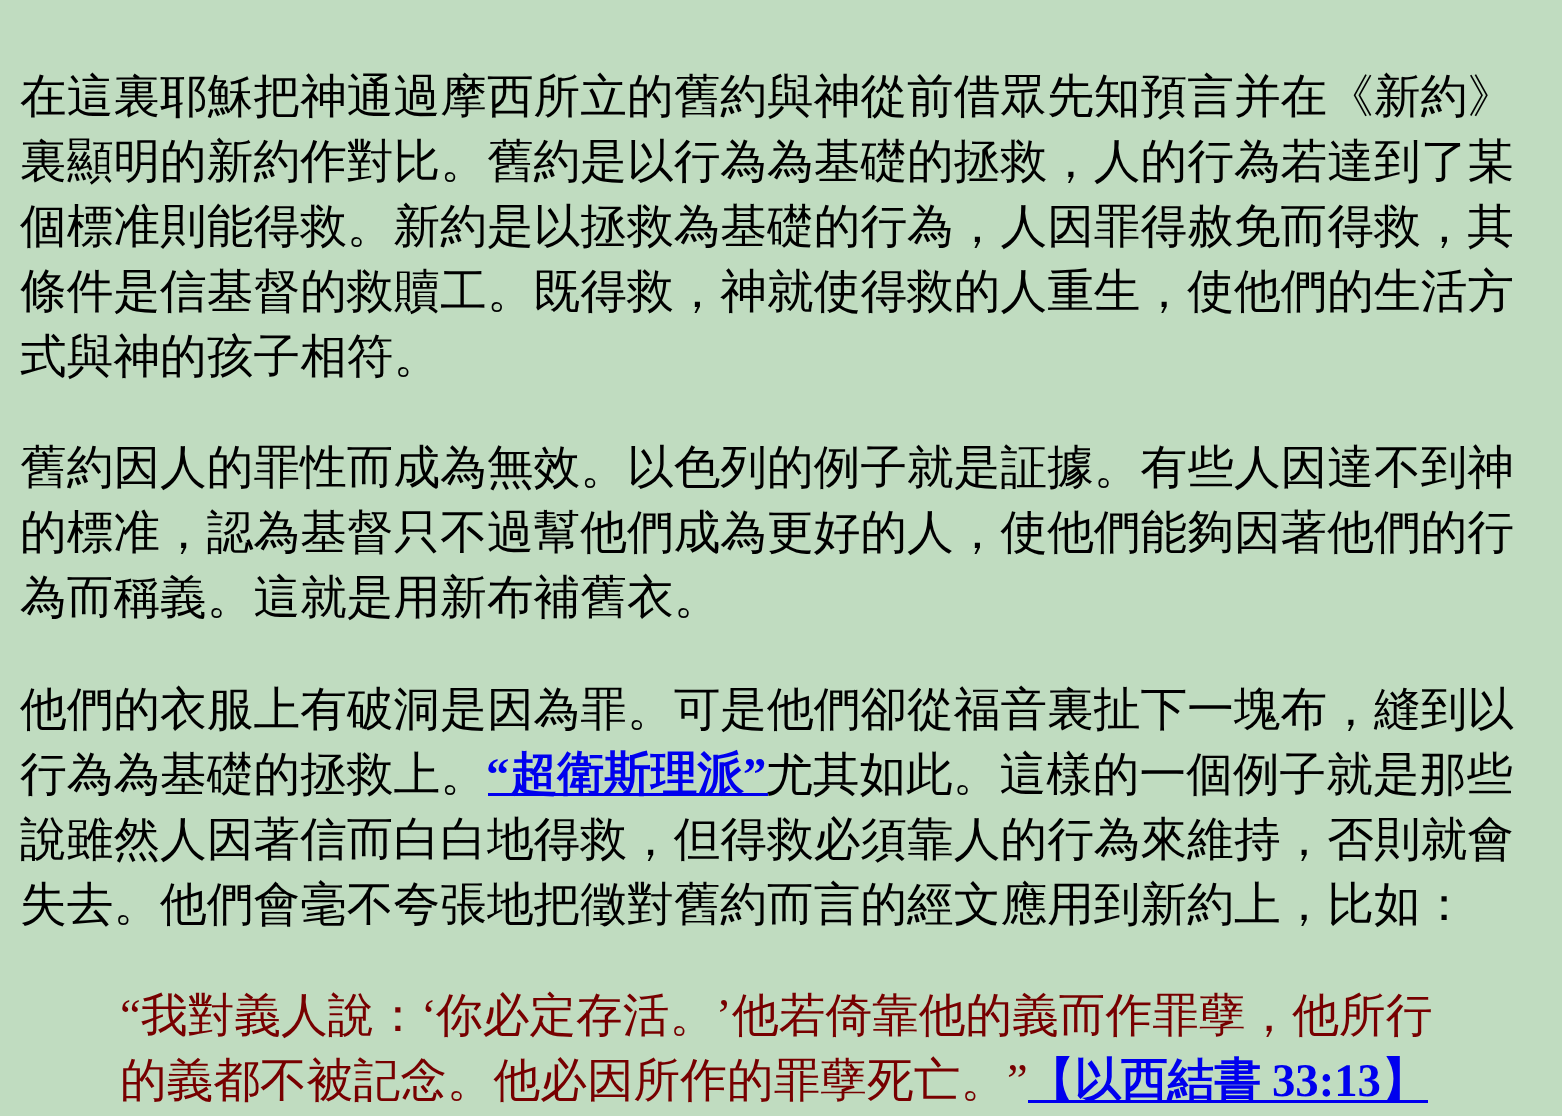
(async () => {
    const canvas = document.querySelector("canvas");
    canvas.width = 1562;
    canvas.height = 1116;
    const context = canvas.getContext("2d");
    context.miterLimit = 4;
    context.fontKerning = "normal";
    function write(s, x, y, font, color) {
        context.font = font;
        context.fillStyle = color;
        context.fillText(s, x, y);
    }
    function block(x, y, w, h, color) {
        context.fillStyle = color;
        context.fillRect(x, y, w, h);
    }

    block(0, 0, 1562, 1116, "rgb(192, 220, 192)");
    write("在這裏耶穌把神通過摩西所立的舊約與神從前借眾先知預言并在《新約》", 20, 112, "500 46.7px WenQuanYi Zen Hei", "rgb(0, 0, 0)");
    write("裏顯明的新約作對比。舊約是以行為為基礎的拯救，人的行為若達到了某", 20, 177, "500 46.7px WenQuanYi Zen Hei", "rgb(0, 0, 0)");
    write("個標准則能得救。新約是以拯救為基礎的行為，人因罪得赦免而得救，其", 20, 242, "500 46.7px WenQuanYi Zen Hei", "rgb(0, 0, 0)");
    write("條件是信基督的救贖工。既得救，神就使得救的人重生，使他們的生活方", 20, 307, "500 46.7px WenQuanYi Zen Hei", "rgb(0, 0, 0)");
    write("式與神的孩子相符。", 20, 372, "500 46.7px WenQuanYi Zen Hei", "rgb(0, 0, 0)");
    write("舊約因人的罪性而成為無效。以色列的例子就是証據。有些人因達不到神", 20, 483, "500 46.7px WenQuanYi Zen Hei", "rgb(0, 0, 0)");
    write("的標准，認為基督只不過幫他們成為更好的人，使他們能夠因著他們的行", 20, 548, "500 46.7px WenQuanYi Zen Hei", "rgb(0, 0, 0)");
    write("為而稱義。這就是用新布補舊衣。", 20, 613, "500 46.7px WenQuanYi Zen Hei", "rgb(0, 0, 0)");
    write("他們的衣服上有破洞是因為罪。可是他們卻從福音裏扯下一塊布，縫到以", 20, 725, "500 46.7px WenQuanYi Zen Hei", "rgb(0, 0, 0)");
    write("行為為基礎的拯救上。", 20, 790, "500 46.7px WenQuanYi Zen Hei", "rgb(0, 0, 0)");
    write("“", 486, 790, "bold 46.7px Liberation Serif", "rgb(0, 0, 238)");
    block(488, 793, 280, 3, "rgb(0, 0, 238)");
    write("超衛斯理派", 510, 790, "bold 46.7px WenQuanYi Zen Hei", "rgb(0, 0, 238)");
    write("”", 743, 790, "bold 46.7px Liberation Serif", "rgb(0, 0, 238)");
    write("尤其如此。這樣的一個例子就是那些", 766, 790, "500 46.7px WenQuanYi Zen Hei", "rgb(0, 0, 0)");
    write("說雖然人因著信而白白地得救，但得救必須靠人的行為來維持，否則就會", 20, 855, "500 46.7px WenQuanYi Zen Hei", "rgb(0, 0, 0)");
    write("失去。他們會毫不夸張地把徵對舊約而言的經文應用到新約上，比如：", 20, 920, "500 46.7px WenQuanYi Zen Hei", "rgb(0, 0, 0)");
    write("“", 120, 1031, "46.7px Liberation Serif", "rgb(119, 0, 0)");
    write("我對義人說：", 141, 1031, "500 46.7px WenQuanYi Zen Hei", "rgb(119, 0, 0)");
    write("‘", 421, 1031, "46.7px Liberation Serif", "rgb(119, 0, 0)");
    write("你必定存活。", 436, 1031, "500 46.7px WenQuanYi Zen Hei", "rgb(119, 0, 0)");
    write("’", 716, 1031, "46.7px Liberation Serif", "rgb(119, 0, 0)");
    write("他若倚靠他的義而作罪孽，他所行", 732, 1031, "500 46.7px WenQuanYi Zen Hei", "rgb(119, 0, 0)");
    write("的義都不被記念。他必因所作的罪孽死亡。", 120, 1096, "500 46.7px WenQuanYi Zen Hei", "rgb(119, 0, 0)");
    write("”", 1007, 1096, "46.7px Liberation Serif", "rgb(119, 0, 0)");
    block(1028, 1100, 400, 3, "rgb(0, 0, 238)");
    write("【以西結書", 1027, 1096, "bold 46.7px WenQuanYi Zen Hei", "rgb(0, 0, 238)");
    write("33:13", 1272, 1096, "bold 46.7px Liberation Serif", "rgb(0, 0, 238)");
    write("】", 1381, 1096, "bold 46.7px WenQuanYi Zen Hei", "rgb(0, 0, 238)");
})();
